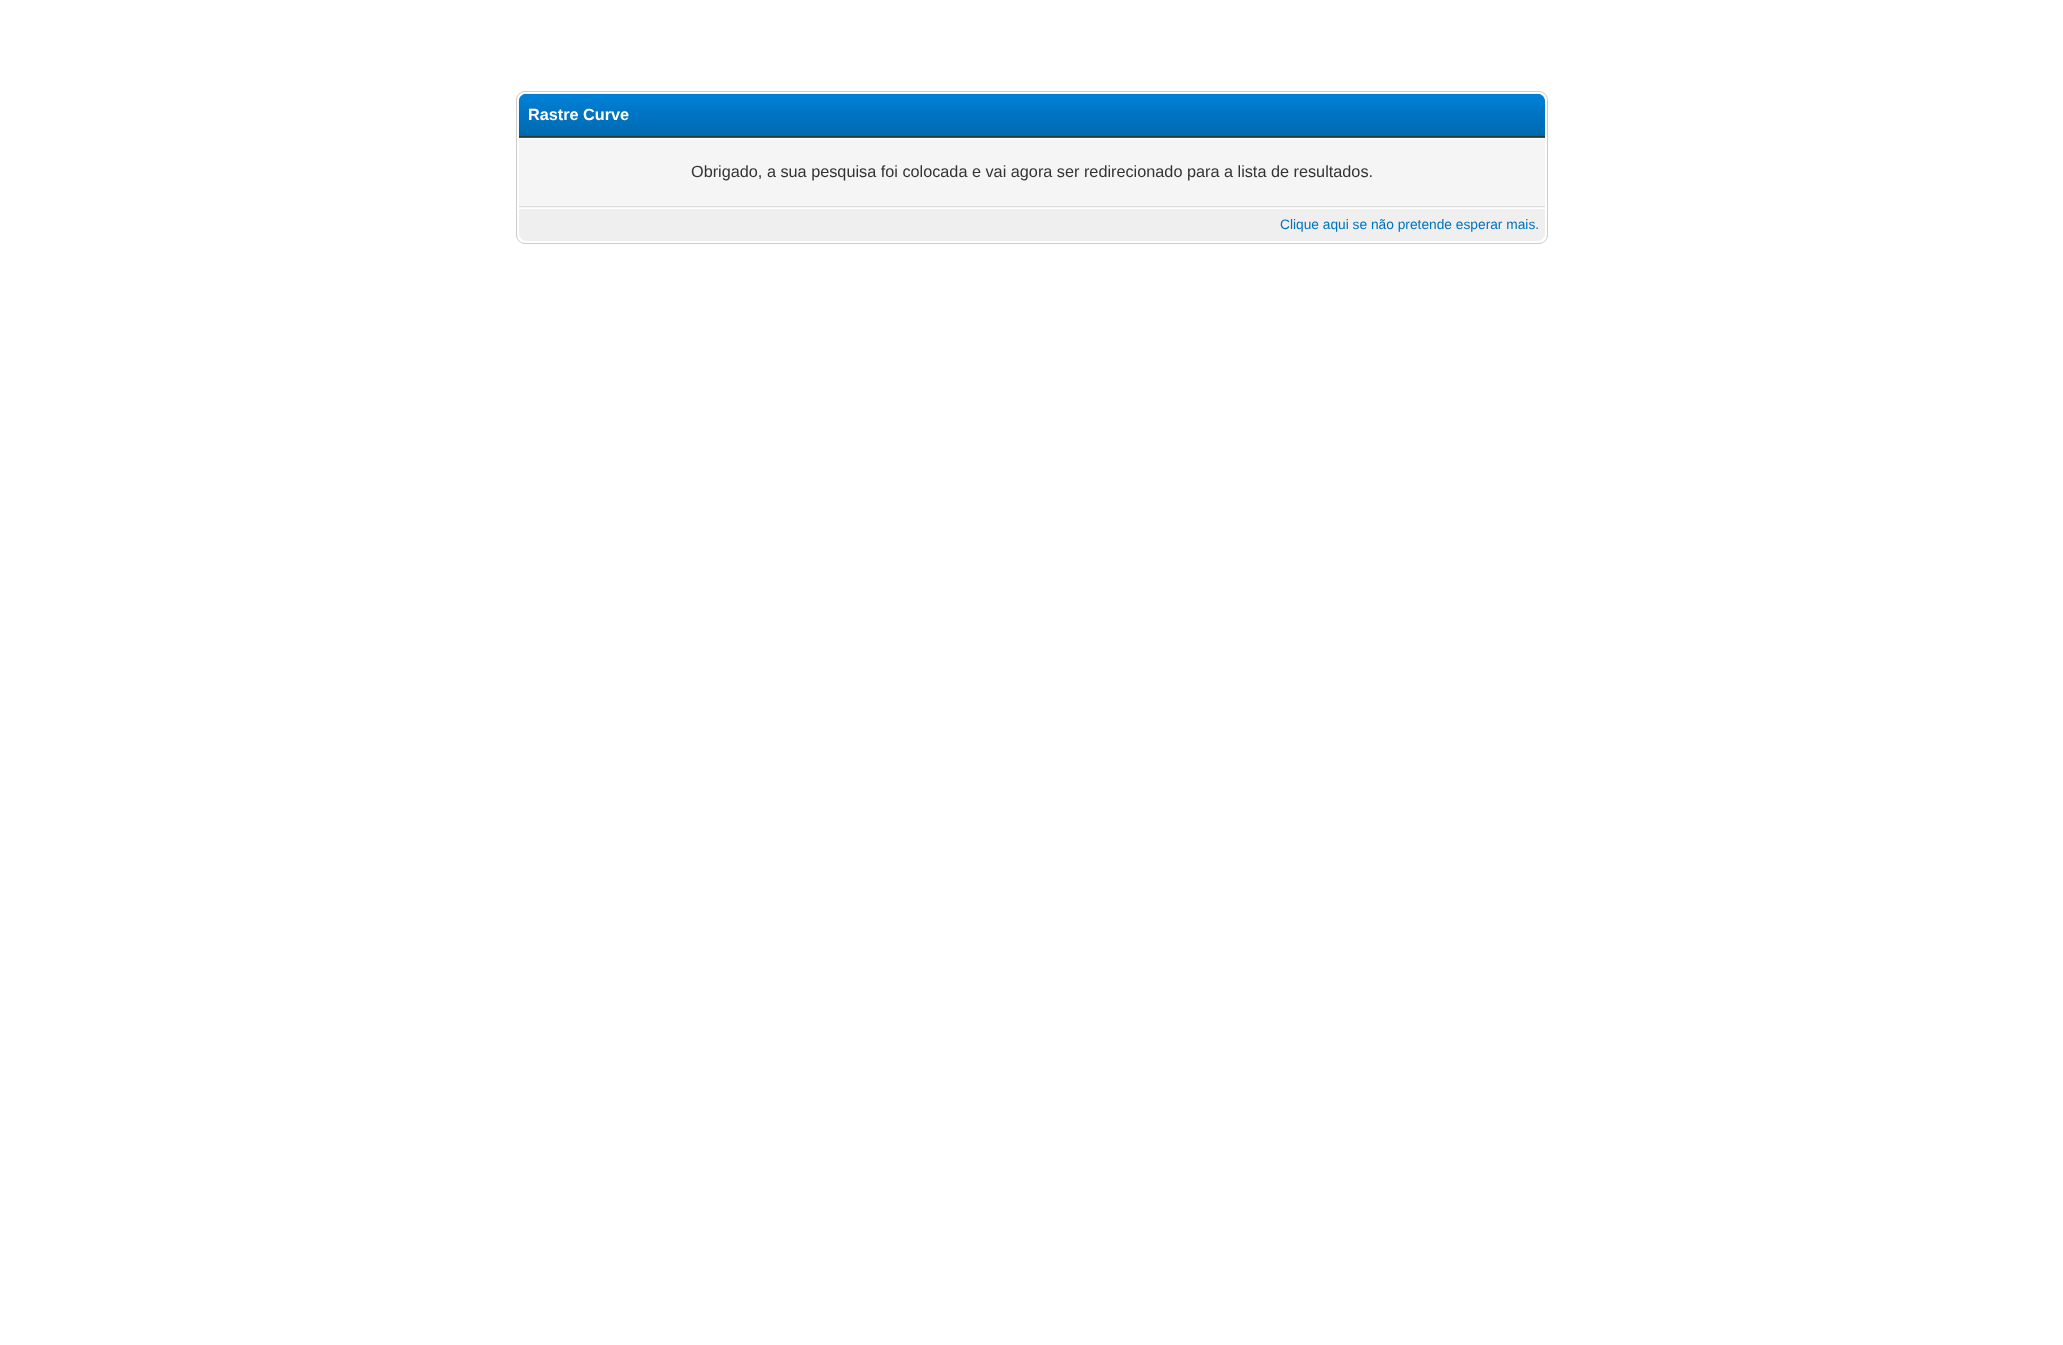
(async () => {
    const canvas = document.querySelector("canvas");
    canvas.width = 2063;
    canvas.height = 1345;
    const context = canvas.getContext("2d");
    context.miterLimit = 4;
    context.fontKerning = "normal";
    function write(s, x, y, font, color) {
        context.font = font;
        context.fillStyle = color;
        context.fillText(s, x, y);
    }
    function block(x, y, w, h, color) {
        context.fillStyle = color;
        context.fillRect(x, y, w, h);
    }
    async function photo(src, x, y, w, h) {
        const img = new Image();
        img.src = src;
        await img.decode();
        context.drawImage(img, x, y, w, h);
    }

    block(0, 0, 2063, 1345, "rgb(255, 255, 255)");
    context.beginPath();
    context.roundRect(516.5, 91.5, 1031, 152, 8.5);
    context.strokeStyle = "rgb(204, 204, 204)";
    context.stroke();
    context.fillStyle = "rgb(0, 102, 162)";
    context.beginPath();
    context.roundRect(519, 94, 1026, 44, [8, 8, 0, 0]);
    context.fill();
    await photo("media/1.png", 518, 93, 1027, 44);
    block(519, 136, 1026, 1, "rgb(38, 60, 48)");
    write("Rastre Curve", 528, 120, "bold 16.25px Liberation Sans", "rgb(255, 255, 255)");
    block(519, 139, 1026, 69, "rgb(245, 245, 245)");
    block(519, 206, 1026, 1, "rgb(221, 221, 221)");
    write("Obrigado, a sua pesquisa foi colocada e vai agora ser redirecionado para a lista de resultados.", 691, 177, "16.25px Liberation Sans", "rgb(51, 51, 51)");
    context.fillStyle = "rgb(239, 239, 239)";
    context.beginPath();
    context.roundRect(519, 208, 1026, 33, [0, 0, 8, 8]);
    context.fill();
    block(519, 208, 1026, 1, "rgb(255, 255, 255)");
    write("Clique aqui se não pretende esperar mais.", 1280, 229, "13.75px Liberation Sans", "rgb(0, 114, 188)");
})();
